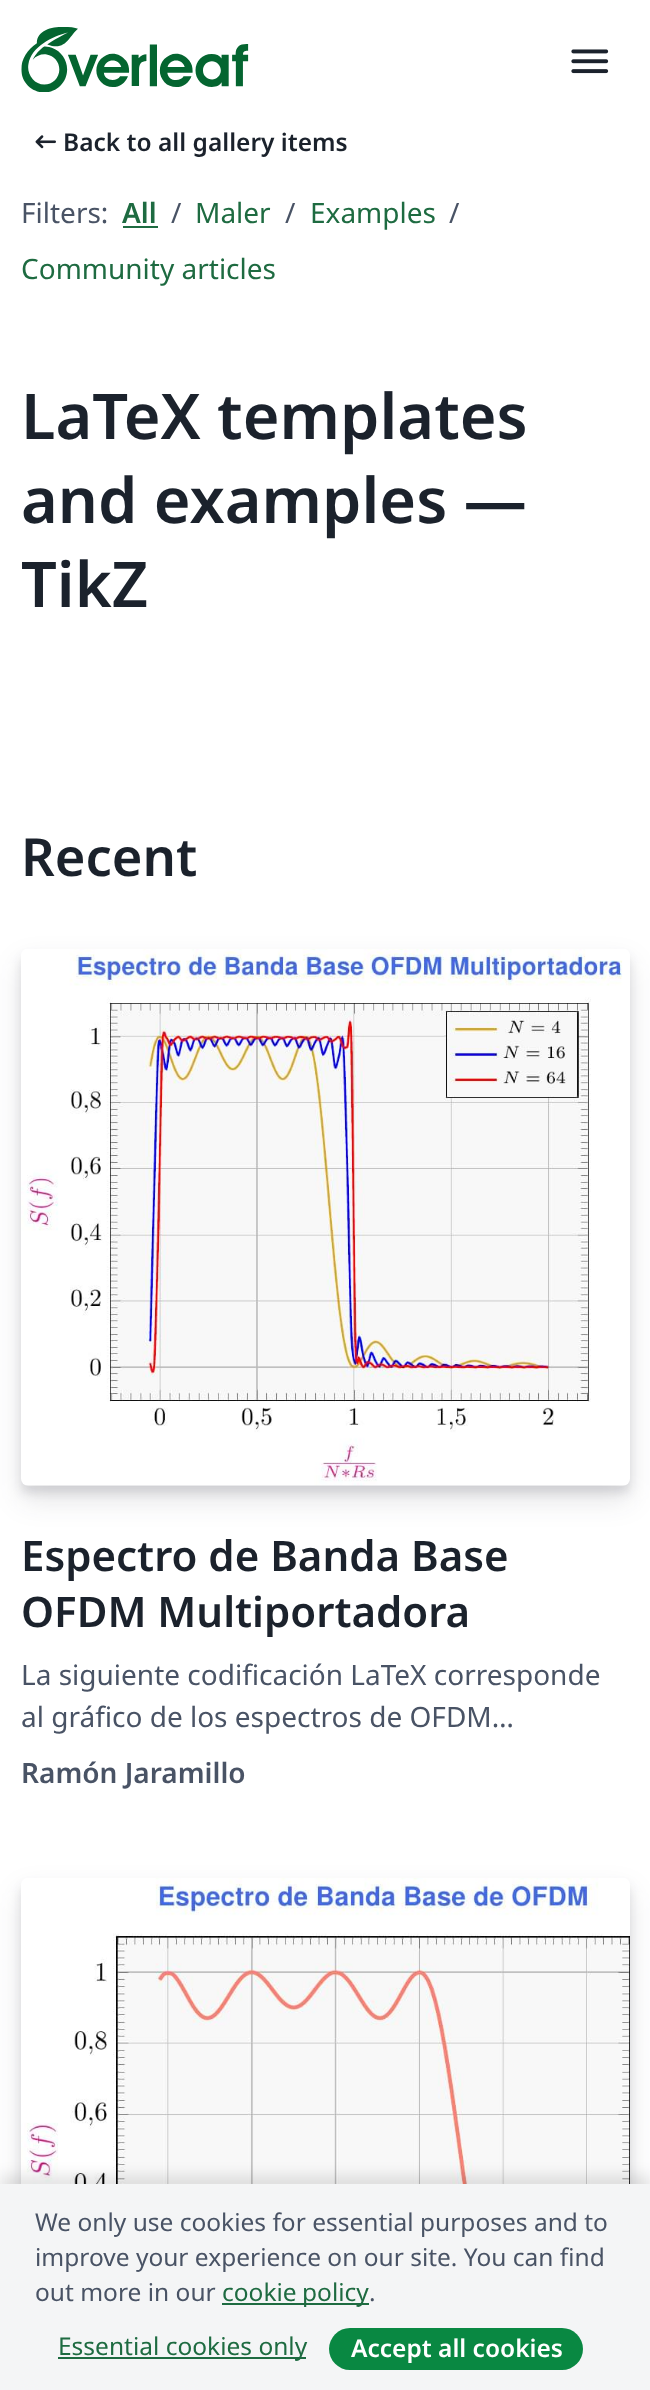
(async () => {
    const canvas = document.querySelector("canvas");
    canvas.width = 650;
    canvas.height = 2390;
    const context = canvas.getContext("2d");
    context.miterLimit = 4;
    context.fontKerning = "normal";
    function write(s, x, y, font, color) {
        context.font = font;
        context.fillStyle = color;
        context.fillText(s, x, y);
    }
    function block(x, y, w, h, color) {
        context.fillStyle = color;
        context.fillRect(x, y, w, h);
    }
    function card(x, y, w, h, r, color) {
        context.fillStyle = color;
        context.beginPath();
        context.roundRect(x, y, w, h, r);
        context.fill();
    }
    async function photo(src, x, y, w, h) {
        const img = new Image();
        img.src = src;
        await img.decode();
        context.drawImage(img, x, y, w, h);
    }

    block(0, 0, 650, 2390, "rgb(255, 255, 255)");
    await photo("media/1.png", 21, 27, 228, 65);
    await photo("media/2.png", 571, 49, 38, 25);
    await photo("media/3.png", 35, 135, 21, 14);
    write("Back to all gallery items", 63, 151, "600 24.5px Noto Sans", "rgb(27, 34, 44)");
    write("Filters:", 21, 223, "28px Noto Sans", "rgb(73, 83, 101)");
    write("All", 122, 223, "600 28px Noto Sans", "rgb(30, 107, 65)");
    block(123, 226, 35, 2, "rgb(30, 107, 65)");
    write("/", 171, 223, "28px Noto Sans", "rgb(73, 83, 101)");
    write("Maler", 195, 223, "28px Noto Sans", "rgb(30, 107, 65)");
    write("/", 285, 223, "28px Noto Sans", "rgb(73, 83, 101)");
    write("Examples", 310, 223, "28px Noto Sans", "rgb(30, 107, 65)");
    write("/", 449, 223, "28px Noto Sans", "rgb(73, 83, 101)");
    write("Community articles", 21, 279, "28px Noto Sans", "rgb(30, 107, 65)");
    write("LaTeX templates", 21, 439, "600 63px Noto Sans", "rgb(27, 34, 44)");
    write("and examples —", 21, 523, "600 63px Noto Sans", "rgb(27, 34, 44)");
    write("TikZ", 21, 607, "600 63px Noto Sans", "rgb(27, 34, 44)");
    write("Recent", 21, 876, "600 52.5px Noto Sans", "rgb(27, 34, 44)");
    context.fillStyle = "rgba(30, 37, 48, 0.12)";
    context.filter = "blur(5px)";
    context.beginPath();
    context.roundRect(21, 956, 609, 537, 7);
    context.fill();
    context.filter = "none";
    context.filter = "blur(14px)";
    context.beginPath();
    context.roundRect(21, 963, 609, 537, 7);
    context.fill();
    context.filter = "none";
    await photo("media/4.png", 21, 949, 609, 537);
    write("Espectro de Banda Base", 21, 1571, "600 42px Noto Sans", "rgb(27, 34, 44)");
    write("OFDM Multiportadora", 21, 1627, "600 42px Noto Sans", "rgb(27, 34, 44)");
    write("La siguiente codificación LaTeX corresponde", 21, 1685, "28px Noto Sans", "rgb(73, 83, 101)");
    write("al gráfico de los espectros de OFDM…", 21, 1727, "28px Noto Sans", "rgb(73, 83, 101)");
    write("Ramón Jaramillo", 21, 1783, "600 28px Noto Sans", "rgb(73, 83, 101)");
    context.fillStyle = "rgba(30, 37, 48, 0.12)";
    context.filter = "blur(5px)";
    context.beginPath();
    context.roundRect(21, 1885, 609, 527, 7);
    context.fill();
    context.filter = "none";
    context.filter = "blur(14px)";
    context.beginPath();
    context.roundRect(21, 1892, 609, 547, 7);
    context.fill();
    context.filter = "none";
    await photo("media/5.png", 21, 1878, 609, 306);
    context.fillStyle = "rgba(0, 0, 0, 0.1)";
    context.filter = "blur(7px)";
    context.beginPath();
    context.rect(0, 2175, 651, 207);
    context.fill();
    context.filter = "none";
    block(0, 2184, 650, 206, "rgb(244, 245, 246)");
    write("We only use cookies for essential purposes and to", 35, 2231, "24.5px Noto Sans", "rgb(73, 83, 101)");
    write("improve your experience on our site. You can find", 35, 2266, "24.5px Noto Sans", "rgb(73, 83, 101)");
    write("out more in our", 35, 2301, "24.5px Noto Sans", "rgb(73, 83, 101)");
    block(222, 2303, 147, 2, "rgb(30, 107, 65)");
    context.wordSpacing = "-1px";
    write("cookie policy", 222, 2301, "24.5px Noto Sans", "rgb(30, 107, 65)");
    context.wordSpacing = "0px";
    write(".", 369, 2301, "24.5px Noto Sans", "rgb(73, 83, 101)");
    block(58, 2357, 248, 2, "rgb(30, 107, 65)");
    write("Essential cookies only", 58, 2355, "24.5px Noto Sans", "rgb(30, 107, 65)");
    card(329, 2328, 254, 42, 21, "rgb(9, 136, 66)");
    write("Accept all cookies", 351, 2357, "600 24.5px Noto Sans", "rgb(255, 255, 255)");
})();
